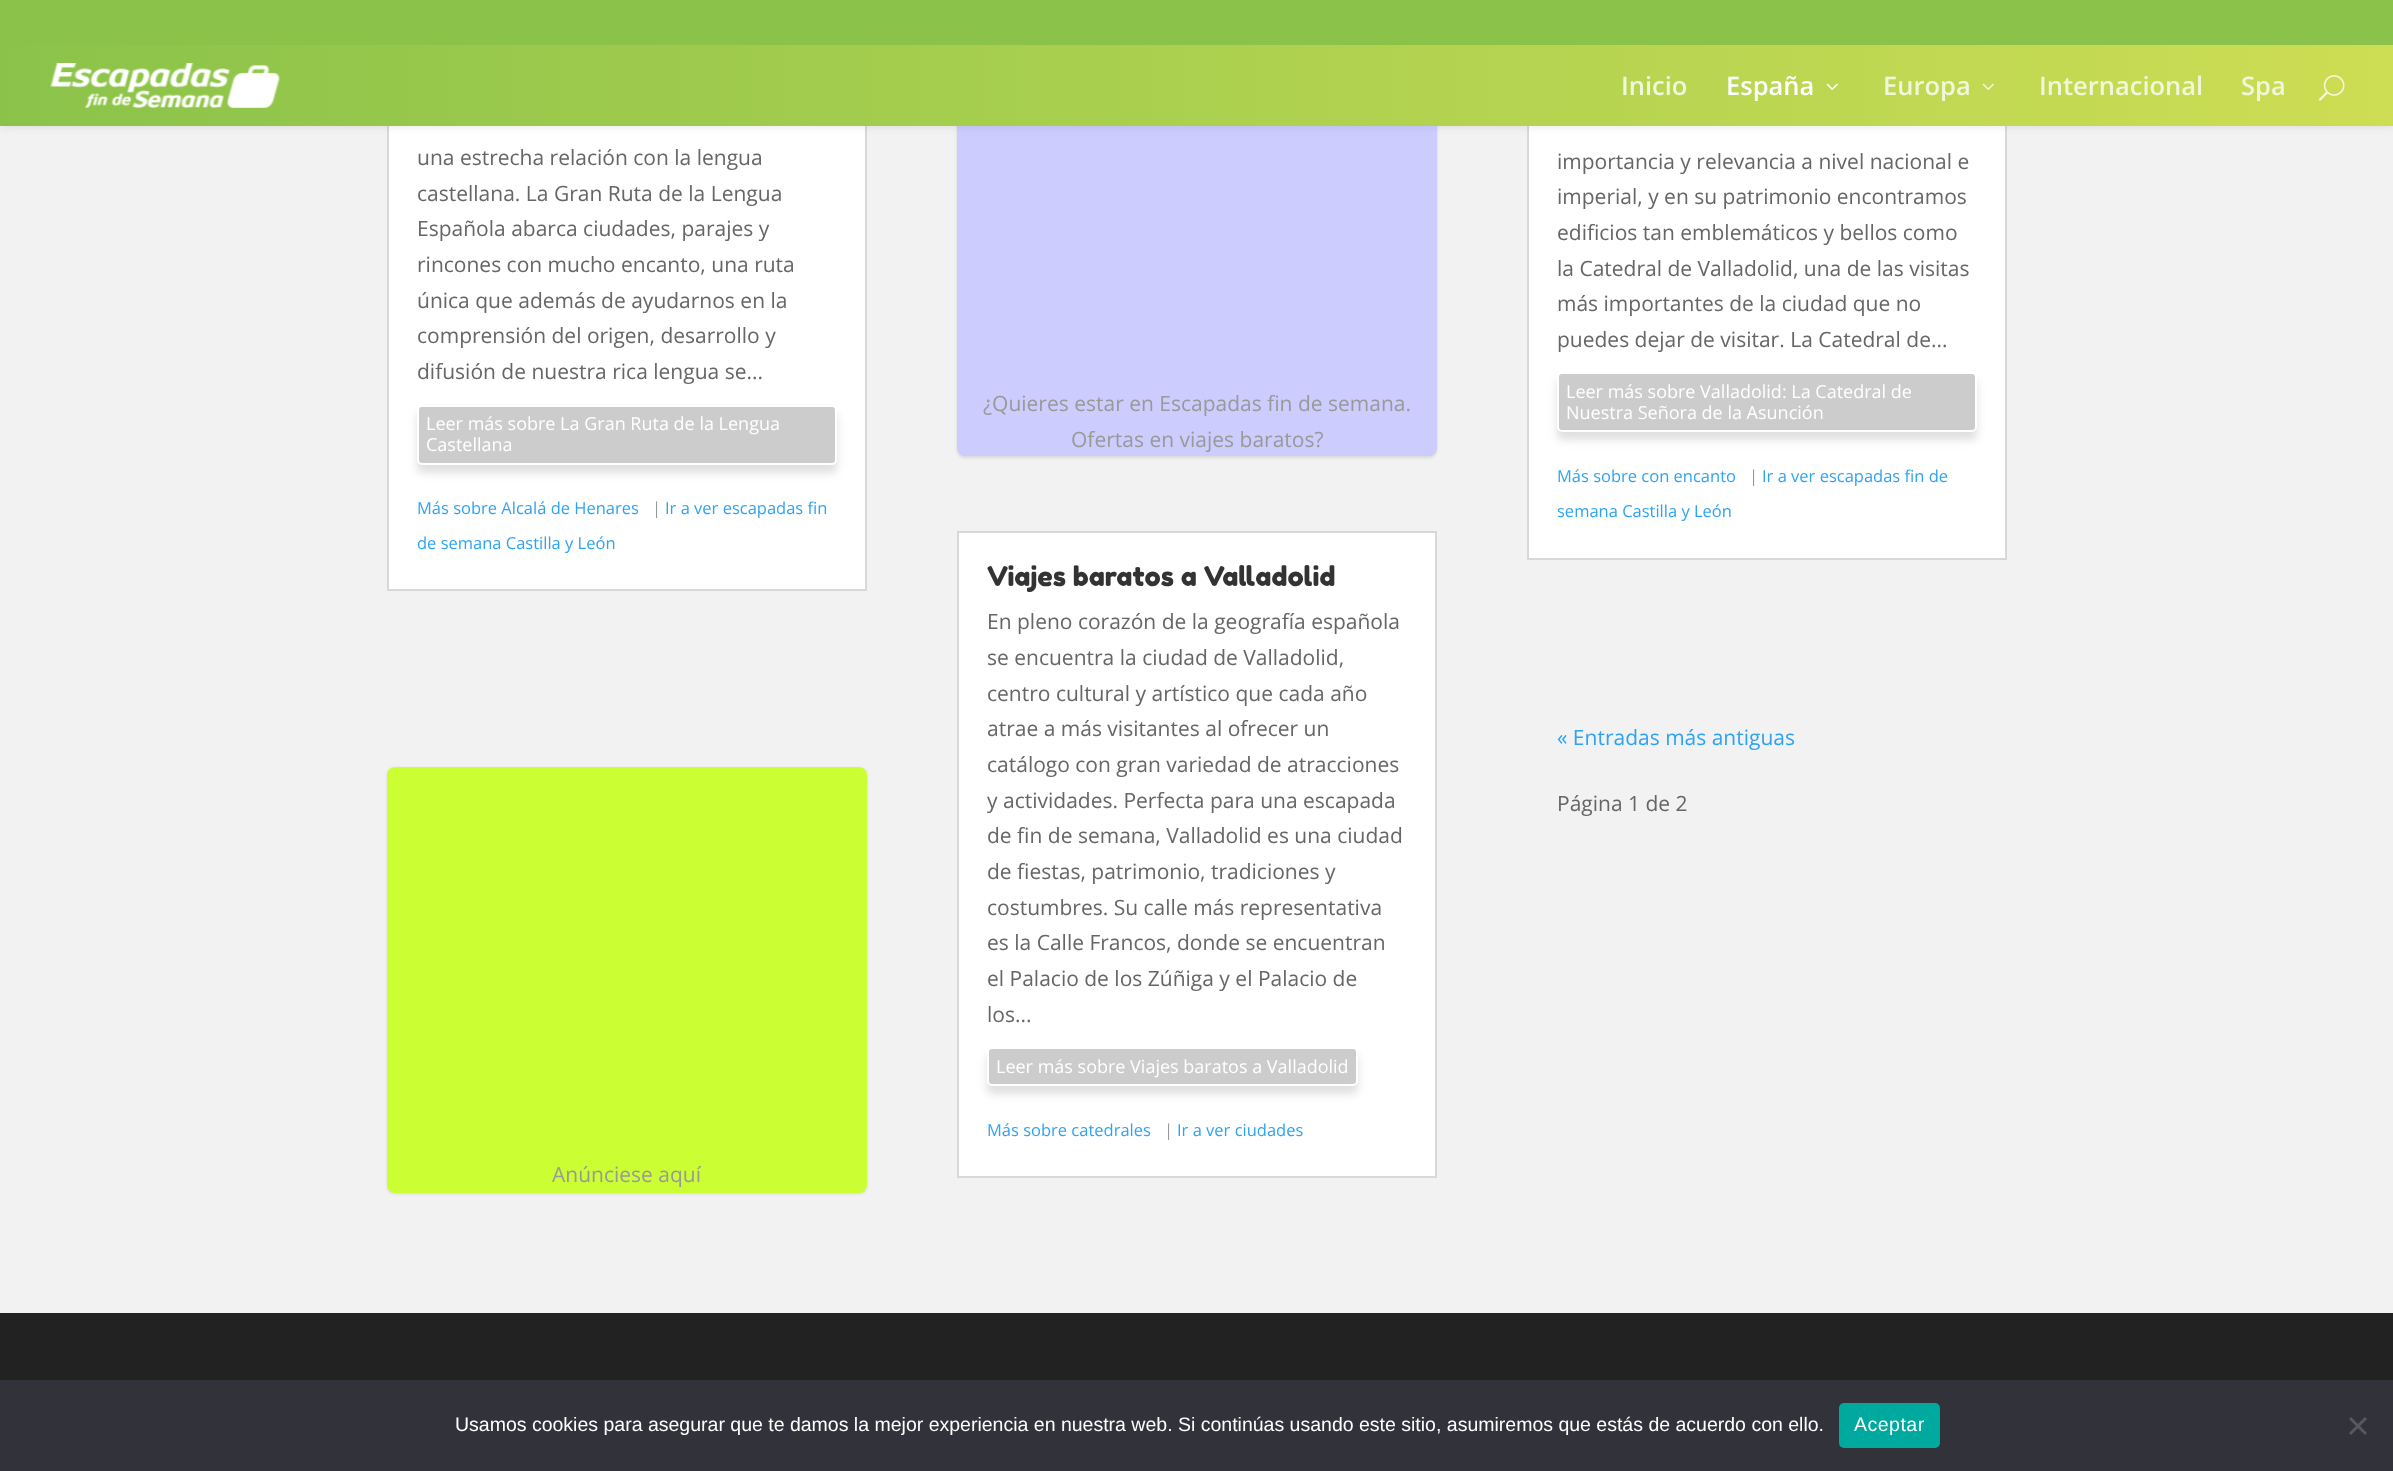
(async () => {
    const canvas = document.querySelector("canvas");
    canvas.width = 2393;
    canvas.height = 1471;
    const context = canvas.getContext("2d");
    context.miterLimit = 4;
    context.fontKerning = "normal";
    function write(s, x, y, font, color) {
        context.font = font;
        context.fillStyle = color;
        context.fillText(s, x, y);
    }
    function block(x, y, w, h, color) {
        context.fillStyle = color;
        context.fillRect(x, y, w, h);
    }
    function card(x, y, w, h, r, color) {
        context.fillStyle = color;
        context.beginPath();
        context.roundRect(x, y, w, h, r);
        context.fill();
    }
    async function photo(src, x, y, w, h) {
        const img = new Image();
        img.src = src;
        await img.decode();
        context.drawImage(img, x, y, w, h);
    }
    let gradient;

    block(0, 0, 2393, 1471, "rgb(242, 242, 242)");
    block(389, 126, 476, 463, "rgb(255, 255, 255)");
    context.strokeStyle = "rgb(216, 216, 216)";
    context.lineWidth = 2;
    context.strokeRect(388, -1, 478, 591);
    context.fillStyle = "rgba(0, 0, 0, 0.1)";
    context.filter = "blur(1.5px)";
    context.beginPath();
    context.roundRect(957, 12, 480, 446, 8);
    context.fill();
    context.filter = "none";
    card(957, 11, 480, 445, 8, "rgb(204, 204, 255)");
    block(1529, 126, 476, 432, "rgb(255, 255, 255)");
    context.strokeRect(1528, -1, 478, 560);
    context.fillStyle = "rgba(0, 0, 0, 0.1)";
    context.filter = "blur(5px)";
    context.beginPath();
    context.rect(0, 45, 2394, 81);
    context.fill();
    context.filter = "none";
    block(0, 0, 2393, 45, "rgb(139, 195, 74)");
    gradient = context.createLinearGradient(0, 86, 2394, 85);
    gradient.addColorStop(0, "rgb(139, 195, 74)");
    gradient.addColorStop(1, "rgb(205, 221, 84)");
    context.fillStyle = gradient;
    context.fillRect(0, 45, 2393, 81);
    await photo("media/1.png", 50, 63, 230, 45);
    write("Inicio", 1621, 95, "600 25.5px Open Sans", "rgb(241, 247, 220)");
    write("España", 1726, 95, "600 25.5px Open Sans", "rgb(255, 255, 255)");
    await photo("media/2.png", 1826, 83, 12, 7);
    write("Europa", 1883, 95, "600 25.5px Open Sans", "rgb(241, 247, 220)");
    await photo("media/3.png", 1982, 83, 12, 7);
    write("Internacional", 2039, 95, "600 25.5px Open Sans", "rgb(241, 247, 220)");
    write("Spa", 2241, 95, "600 25.5px Open Sans", "rgb(241, 247, 220)");
    await photo("media/4.png", 2318, 75, 27, 26);
    write("una estrecha relación con la lengua", 417, 165, "21px Open Sans", "rgb(102, 102, 102)");
    write("castellana. La Gran Ruta de la Lengua", 417, 201, "21px Open Sans", "rgb(102, 102, 102)");
    write("Española abarca ciudades, parajes y", 417, 236, "21px Open Sans", "rgb(102, 102, 102)");
    write("rincones con mucho encanto, una ruta", 417, 272, "21px Open Sans", "rgb(102, 102, 102)");
    write("única que además de ayudarnos en la", 417, 308, "21px Open Sans", "rgb(102, 102, 102)");
    write("comprensión del origen, desarrollo y", 417, 343, "21px Open Sans", "rgb(102, 102, 102)");
    write("difusión de nuestra rica lengua se...", 417, 379, "21px Open Sans", "rgb(102, 102, 102)");
    context.fillStyle = "rgba(176, 176, 176, 0.4)";
    context.filter = "blur(4px)";
    context.beginPath();
    context.roundRect(417, 413, 420, 60, 5);
    context.fill();
    context.filter = "none";
    context.fillStyle = "rgb(204, 204, 204)";
    context.beginPath();
    context.roundRect(418, 406, 418, 58, 4);
    context.fill();
    context.strokeStyle = "rgb(255, 255, 255)";
    context.stroke();
    write("Leer más sobre La Gran Ruta de la Lengua", 426, 430, "18px Open Sans", "rgb(255, 255, 255)");
    write("Castellana", 426, 451, "18px Open Sans", "rgb(255, 255, 255)");
    write("Más sobre Alcalá de Henares", 417, 514, "16.5px Open Sans", "rgb(46, 163, 242)");
    write("|", 652, 514, "16.5px Open Sans", "rgb(153, 153, 153)");
    write("Ir a ver escapadas fin", 665, 514, "16.5px Open Sans", "rgb(46, 163, 242)");
    write("de semana Castilla y León", 417, 549, "16.5px Open Sans", "rgb(46, 163, 242)");
    write("¿Quieres estar en Escapadas fin de semana.", 983, 411, "21px Open Sans", "rgb(153, 153, 153)");
    write("Ofertas en viajes baratos?", 1071, 447, "21px Open Sans", "rgb(153, 153, 153)");
    write("importancia y relevancia a nivel nacional e", 1557, 169, "21px Open Sans", "rgb(102, 102, 102)");
    write("imperial, y en su patrimonio encontramos", 1557, 204, "21px Open Sans", "rgb(102, 102, 102)");
    write("edificios tan emblemáticos y bellos como", 1557, 240, "21px Open Sans", "rgb(102, 102, 102)");
    write("la Catedral de Valladolid, una de las visitas", 1557, 276, "21px Open Sans", "rgb(102, 102, 102)");
    write("más importantes de la ciudad que no", 1557, 311, "21px Open Sans", "rgb(102, 102, 102)");
    write("puedes dejar de visitar. La Catedral de...", 1557, 347, "21px Open Sans", "rgb(102, 102, 102)");
    context.fillStyle = "rgba(176, 176, 176, 0.4)";
    context.filter = "blur(4px)";
    context.beginPath();
    context.roundRect(1557, 380, 420, 60, 5);
    context.fill();
    context.filter = "none";
    context.fillStyle = "rgb(204, 204, 204)";
    context.beginPath();
    context.roundRect(1558, 373, 418, 58, 4);
    context.fill();
    context.stroke();
    write("Leer más sobre Valladolid: La Catedral de", 1566, 398, "18px Open Sans", "rgb(255, 255, 255)");
    write("Nuestra Señora de la Asunción", 1566, 419, "18px Open Sans", "rgb(255, 255, 255)");
    write("Más sobre con encanto", 1557, 482, "16.5px Open Sans", "rgb(46, 163, 242)");
    write("|", 1749, 482, "16.5px Open Sans", "rgb(153, 153, 153)");
    write("Ir a ver escapadas fin de", 1762, 482, "16.5px Open Sans", "rgb(46, 163, 242)");
    write("semana Castilla y León", 1557, 517, "16.5px Open Sans", "rgb(46, 163, 242)");
    context.fillStyle = "rgb(255, 255, 255)";
    context.beginPath();
    context.rect(958, 532, 478, 645);
    context.fill();
    context.strokeStyle = "rgb(216, 216, 216)";
    context.stroke();
    write("Viajes baratos a Valladolid", 987, 586, "27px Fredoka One", "rgb(51, 51, 51)");
    write("En pleno corazón de la geografía española", 987, 629, "21px Open Sans", "rgb(102, 102, 102)");
    write("se encuentra la ciudad de Valladolid,", 987, 665, "21px Open Sans", "rgb(102, 102, 102)");
    write("centro cultural y artístico que cada año", 987, 701, "21px Open Sans", "rgb(102, 102, 102)");
    write("atrae a más visitantes al ofrecer un", 987, 736, "21px Open Sans", "rgb(102, 102, 102)");
    write("catálogo con gran variedad de atracciones", 987, 772, "21px Open Sans", "rgb(102, 102, 102)");
    write("y actividades. Perfecta para una escapada", 987, 808, "21px Open Sans", "rgb(102, 102, 102)");
    write("de fin de semana, Valladolid es una ciudad", 987, 843, "21px Open Sans", "rgb(102, 102, 102)");
    write("de fiestas, patrimonio, tradiciones y", 987, 879, "21px Open Sans", "rgb(102, 102, 102)");
    write("costumbres. Su calle más representativa", 987, 915, "21px Open Sans", "rgb(102, 102, 102)");
    write("es la Calle Francos, donde se encuentran", 987, 950, "21px Open Sans", "rgb(102, 102, 102)");
    write("el Palacio de los Zúñiga y el Palacio de", 987, 986, "21px Open Sans", "rgb(102, 102, 102)");
    write("los...", 987, 1022, "21px Open Sans", "rgb(102, 102, 102)");
    context.fillStyle = "rgba(176, 176, 176, 0.4)";
    context.filter = "blur(4px)";
    context.beginPath();
    context.roundRect(987, 1055, 371, 39, 5);
    context.fill();
    context.filter = "none";
    context.fillStyle = "rgb(204, 204, 204)";
    context.beginPath();
    context.roundRect(988, 1048, 369, 37, 4);
    context.fill();
    context.strokeStyle = "rgb(255, 255, 255)";
    context.stroke();
    write("Leer más sobre Viajes baratos a Valladolid", 996, 1073, "18px Open Sans", "rgb(255, 255, 255)");
    write("Más sobre catedrales", 987, 1136, "16.5px Open Sans", "rgb(46, 163, 242)");
    write("|", 1164, 1136, "16.5px Open Sans", "rgb(153, 153, 153)");
    write("Ir a ver ciudades", 1177, 1136, "16.5px Open Sans", "rgb(46, 163, 242)");
    write("« Entradas más antiguas", 1557, 745, "21px Open Sans", "rgb(46, 163, 242)");
    write("Página 1 de 2", 1557, 811, "21px Open Sans", "rgb(102, 102, 102)");
    context.fillStyle = "rgba(0, 0, 0, 0.1)";
    context.filter = "blur(1.5px)";
    context.beginPath();
    context.roundRect(387, 768, 480, 426, 8);
    context.fill();
    context.filter = "none";
    card(387, 767, 480, 426, 8, "rgb(204, 255, 51)");
    write("Anúnciese aquí", 552, 1182, "21px Open Sans", "rgb(153, 153, 153)");
    block(0, 1313, 2393, 67, "rgb(34, 34, 34)");
    block(0, 1380, 2393, 91, "rgb(50, 50, 58)");
    write("Usamos cookies para asegurar que te damos la mejor experiencia en nuestra web. Si continúas usando este sitio, asumiremos que estás de acuerdo con ello.", 455, 1431, "19.5px Liberation Sans", "rgb(255, 255, 255)");
    card(1839, 1403, 101, 45, 5, "rgb(0, 169, 157)");
    context.letterSpacing = "0.5px";
    write("Aceptar", 1854, 1431, "19.5px Liberation Sans", "rgb(255, 255, 255)");
    context.fillStyle = "rgb(89, 89, 93)";
    context.beginPath();
    context.moveTo(2365, 1417);
    context.lineTo(2367, 1419);
    context.lineTo(2351, 1435);
    context.lineTo(2349, 1433);
    context.closePath();
    context.fill();
    context.beginPath();
    context.moveTo(2349, 1419);
    context.lineTo(2351, 1417);
    context.lineTo(2367, 1433);
    context.lineTo(2365, 1435);
    context.closePath();
    context.fill();
})();
